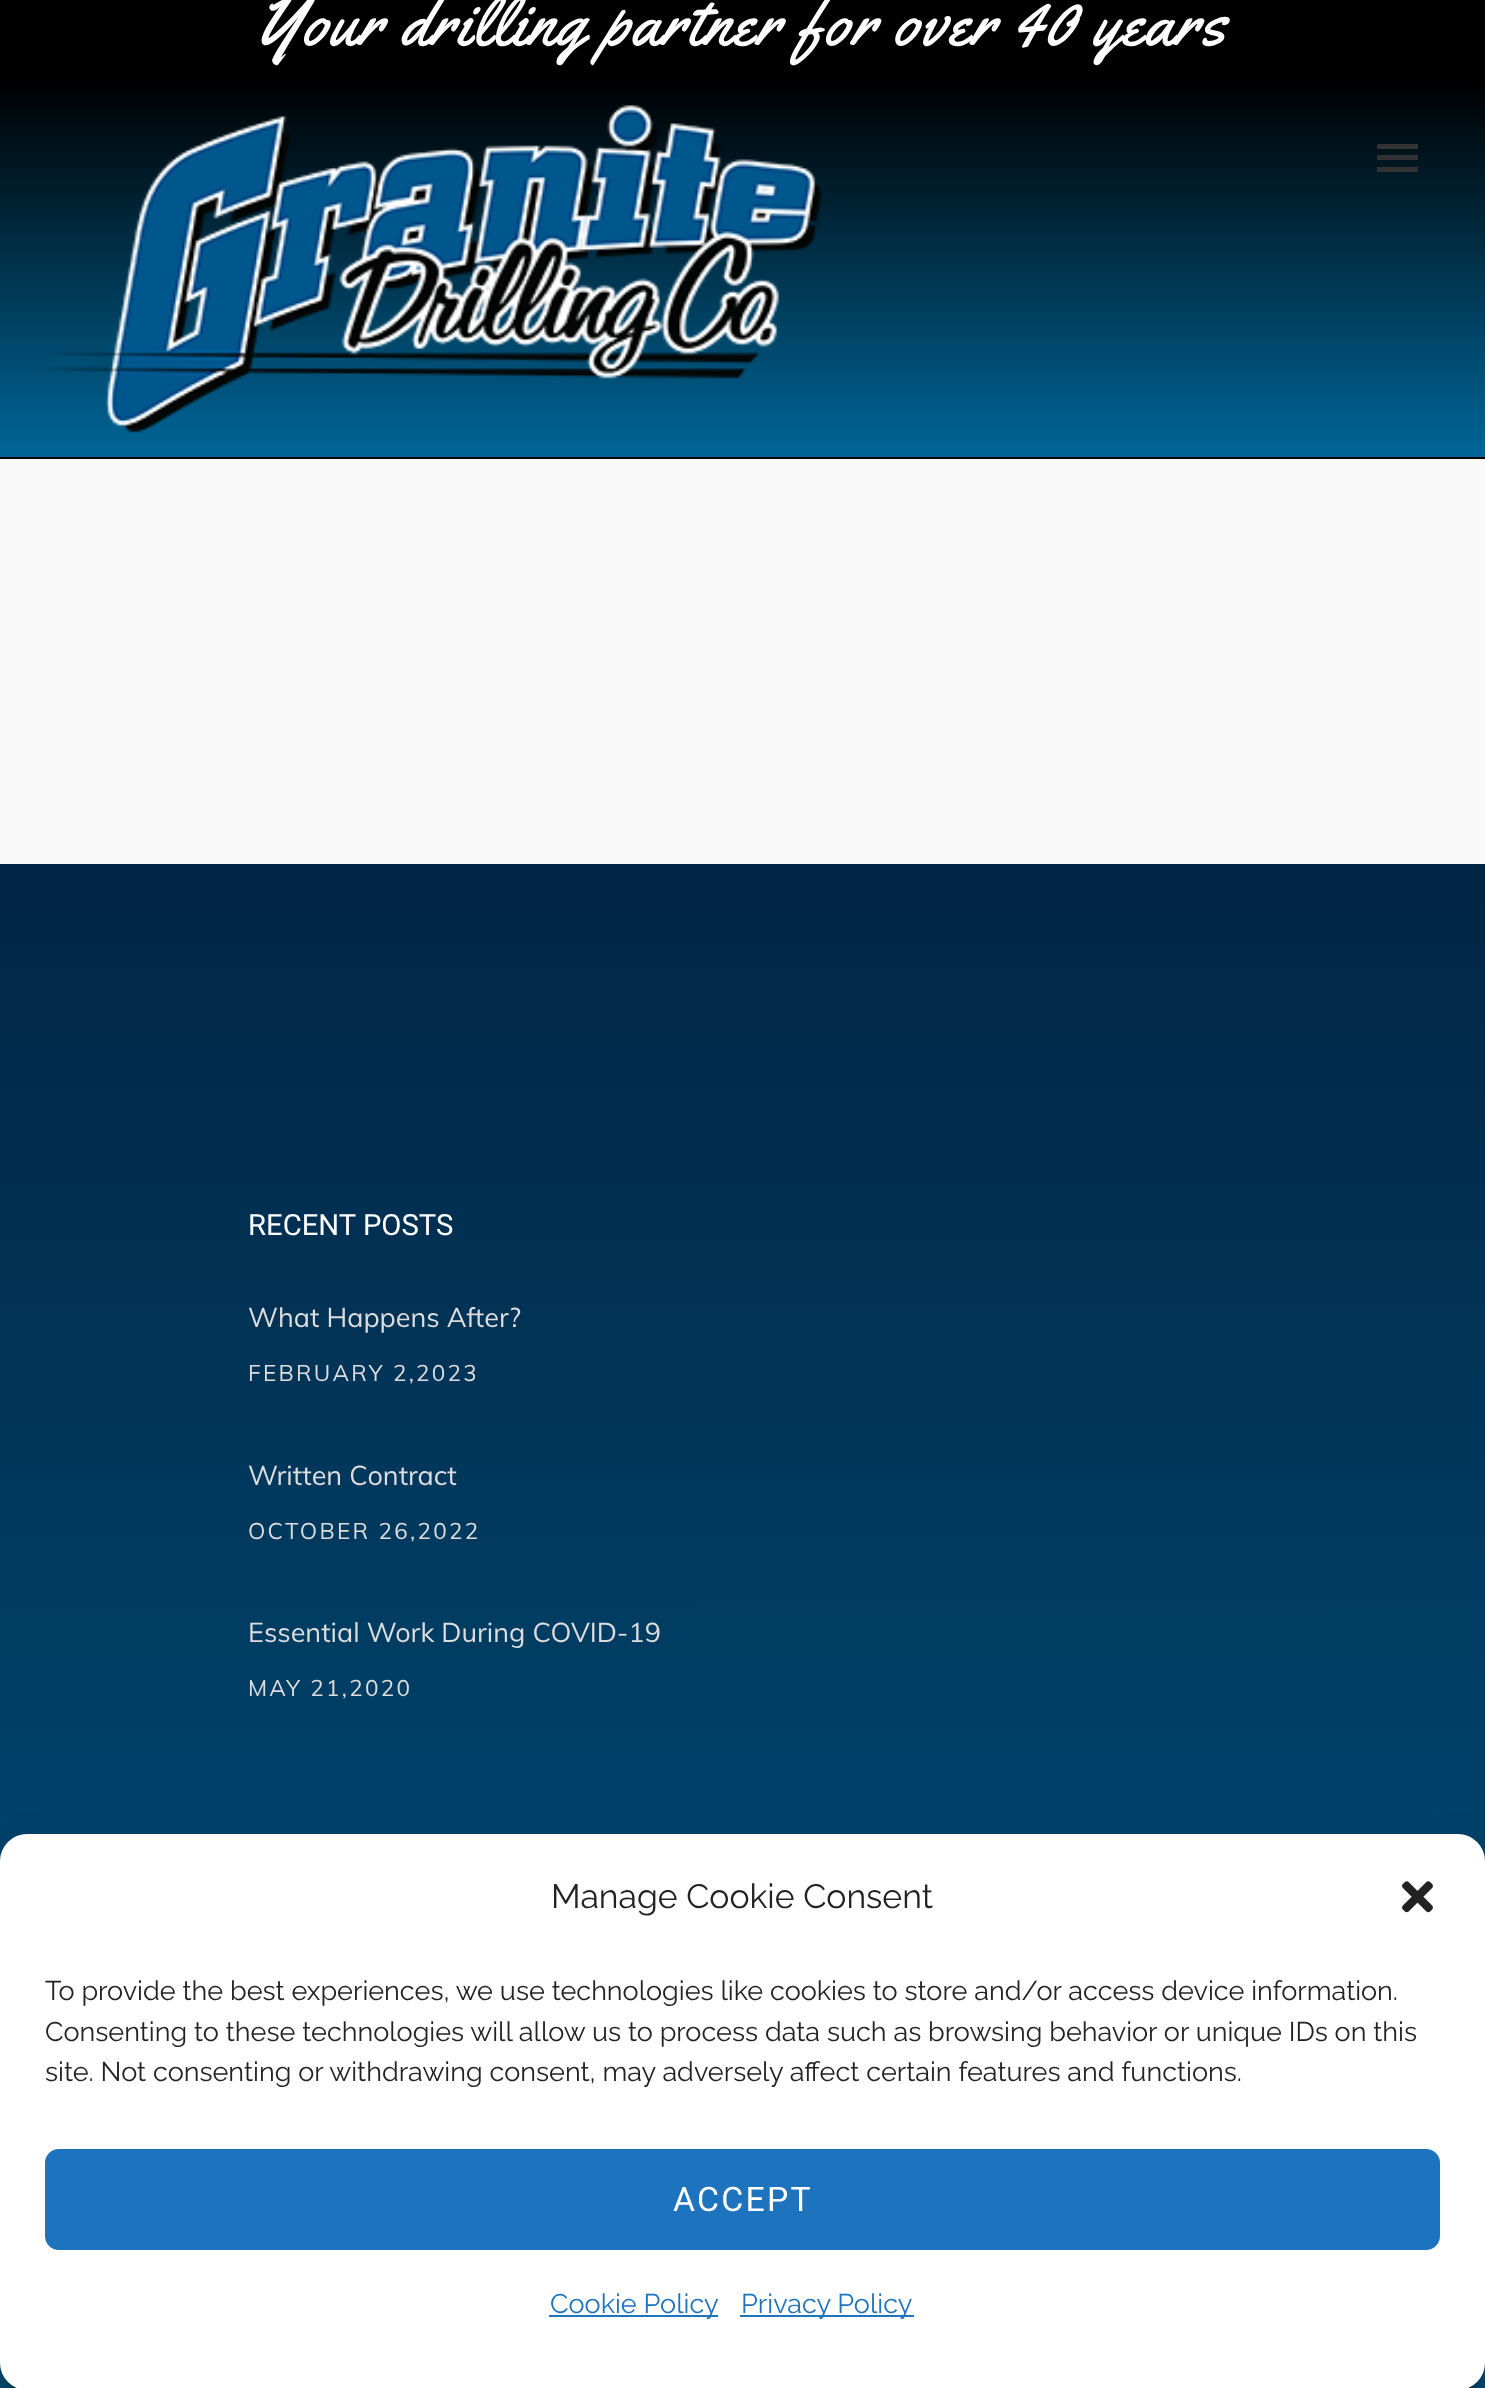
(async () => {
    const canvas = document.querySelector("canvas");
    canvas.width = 1485;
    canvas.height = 2388;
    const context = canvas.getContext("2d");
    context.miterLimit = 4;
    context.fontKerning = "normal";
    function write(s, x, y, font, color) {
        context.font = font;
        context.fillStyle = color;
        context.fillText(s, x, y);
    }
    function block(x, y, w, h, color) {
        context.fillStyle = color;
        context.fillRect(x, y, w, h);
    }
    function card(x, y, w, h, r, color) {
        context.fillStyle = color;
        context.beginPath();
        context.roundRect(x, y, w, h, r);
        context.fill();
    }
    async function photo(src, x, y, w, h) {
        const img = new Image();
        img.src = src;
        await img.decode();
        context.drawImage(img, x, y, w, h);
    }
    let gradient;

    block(0, 0, 1485, 2388, "rgb(249, 249, 249)");
    block(0, 0, 1485, 81, "rgb(0, 0, 0)");
    context.letterSpacing = "2.25px";
    write("Your drilling partner for over 40 years", 256, 45, "67.5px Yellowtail", "rgb(255, 255, 255)");
    gradient = context.createLinearGradient(743, 79, 743, 457);
    gradient.addColorStop(0, "rgb(0, 0, 0)");
    gradient.addColorStop(1, "rgb(0, 102, 153)");
    context.fillStyle = gradient;
    context.fillRect(0, 81, 1485, 376);
    gradient = context.createLinearGradient(743, 457, 743, 835);
    gradient.addColorStop(0, "rgb(0, 0, 0)");
    gradient.addColorStop(1, "rgb(0, 102, 153)");
    context.fillStyle = gradient;
    context.fillRect(0, 457, 1485, 2);
    await photo("media/1.png", 41, 105, 781, 328);
    block(1377, 144, 41, 5, "rgb(50, 50, 50)");
    block(1377, 155, 41, 5, "rgb(50, 50, 50)");
    block(1377, 167, 41, 5, "rgb(50, 50, 50)");
    gradient = context.createLinearGradient(742, 864, 743, 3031);
    gradient.addColorStop(0, "rgb(1, 37, 68)");
    gradient.addColorStop(1, "rgb(0, 102, 153)");
    context.fillStyle = gradient;
    context.fillRect(0, 864, 1485, 1524);
    context.letterSpacing = "0px";
    write("RECENT POSTS", 248, 1235, "29.25px Roboto", "rgb(255, 255, 255)");
    write("What Happens After?", 248, 1327, "27px Muli", "rgb(221, 221, 221)");
    context.letterSpacing = "2.25px";
    write("FEBRUARY 2,2023", 248, 1381, "22.5px Muli", "rgb(221, 221, 221)");
    context.letterSpacing = "0px";
    write("Written Contract", 248, 1485, "27px Muli", "rgb(221, 221, 221)");
    context.letterSpacing = "2.25px";
    write("OCTOBER 26,2022", 248, 1539, "22.5px Muli", "rgb(221, 221, 221)");
    context.letterSpacing = "0px";
    write("Essential Work During COVID-19", 248, 1642, "27px Muli", "rgb(221, 221, 221)");
    context.letterSpacing = "2.25px";
    write("MAY 21,2020", 248, 1696, "22.5px Muli", "rgb(221, 221, 221)");
    context.fillStyle = "rgba(0, 0, 0, 0.23)";
    context.filter = "blur(7px)";
    context.beginPath();
    context.roundRect(0, 1847, 1485, 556, 27);
    context.fill();
    context.filter = "none";
    context.fillStyle = "rgba(0, 0, 0, 0.19)";
    context.filter = "blur(22.5px)";
    context.beginPath();
    context.roundRect(0, 1856, 1485, 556, 27);
    context.fill();
    context.filter = "none";
    card(0, 1834, 1485, 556, 27, "rgb(255, 255, 255)");
    context.letterSpacing = "0px";
    write("Manage Cookie Consent", 551, 1908, "100 33.75px Raleway", "rgb(34, 34, 34)");
    await photo("media/2.png", 1402, 1881, 31, 32);
    write("To provide the best experiences, we use technologies like cookies to store and/or access device information.", 45, 2000, "100 27px Raleway", "rgb(34, 34, 34)");
    write("Consenting to these technologies will allow us to process data such as browsing behavior or unique IDs on this", 45, 2041, "100 27px Raleway", "rgb(34, 34, 34)");
    write("site. Not consenting or withdrawing consent, may adversely affect certain features and functions.", 45, 2081, "100 27px Raleway", "rgb(34, 34, 34)");
    context.fillStyle = "rgb(30, 115, 190)";
    context.beginPath();
    context.roundRect(46, 2150, 1393, 99, 13);
    context.fill();
    context.strokeStyle = "rgb(30, 115, 190)";
    context.lineWidth = 2;
    context.stroke();
    context.letterSpacing = "2.25px";
    write("ACCEPT", 673, 2211, "33.75px Roboto", "rgb(255, 255, 255)");
    block(549, 2315, 169, 2, "rgb(30, 115, 190)");
    context.letterSpacing = "0px";
    write("Cookie Policy", 550, 2313, "100 27px Raleway", "rgb(30, 115, 190)");
    block(740, 2315, 174, 2, "rgb(30, 115, 190)");
    write("Privacy Policy", 741, 2313, "100 27px Raleway", "rgb(30, 115, 190)");
})();
